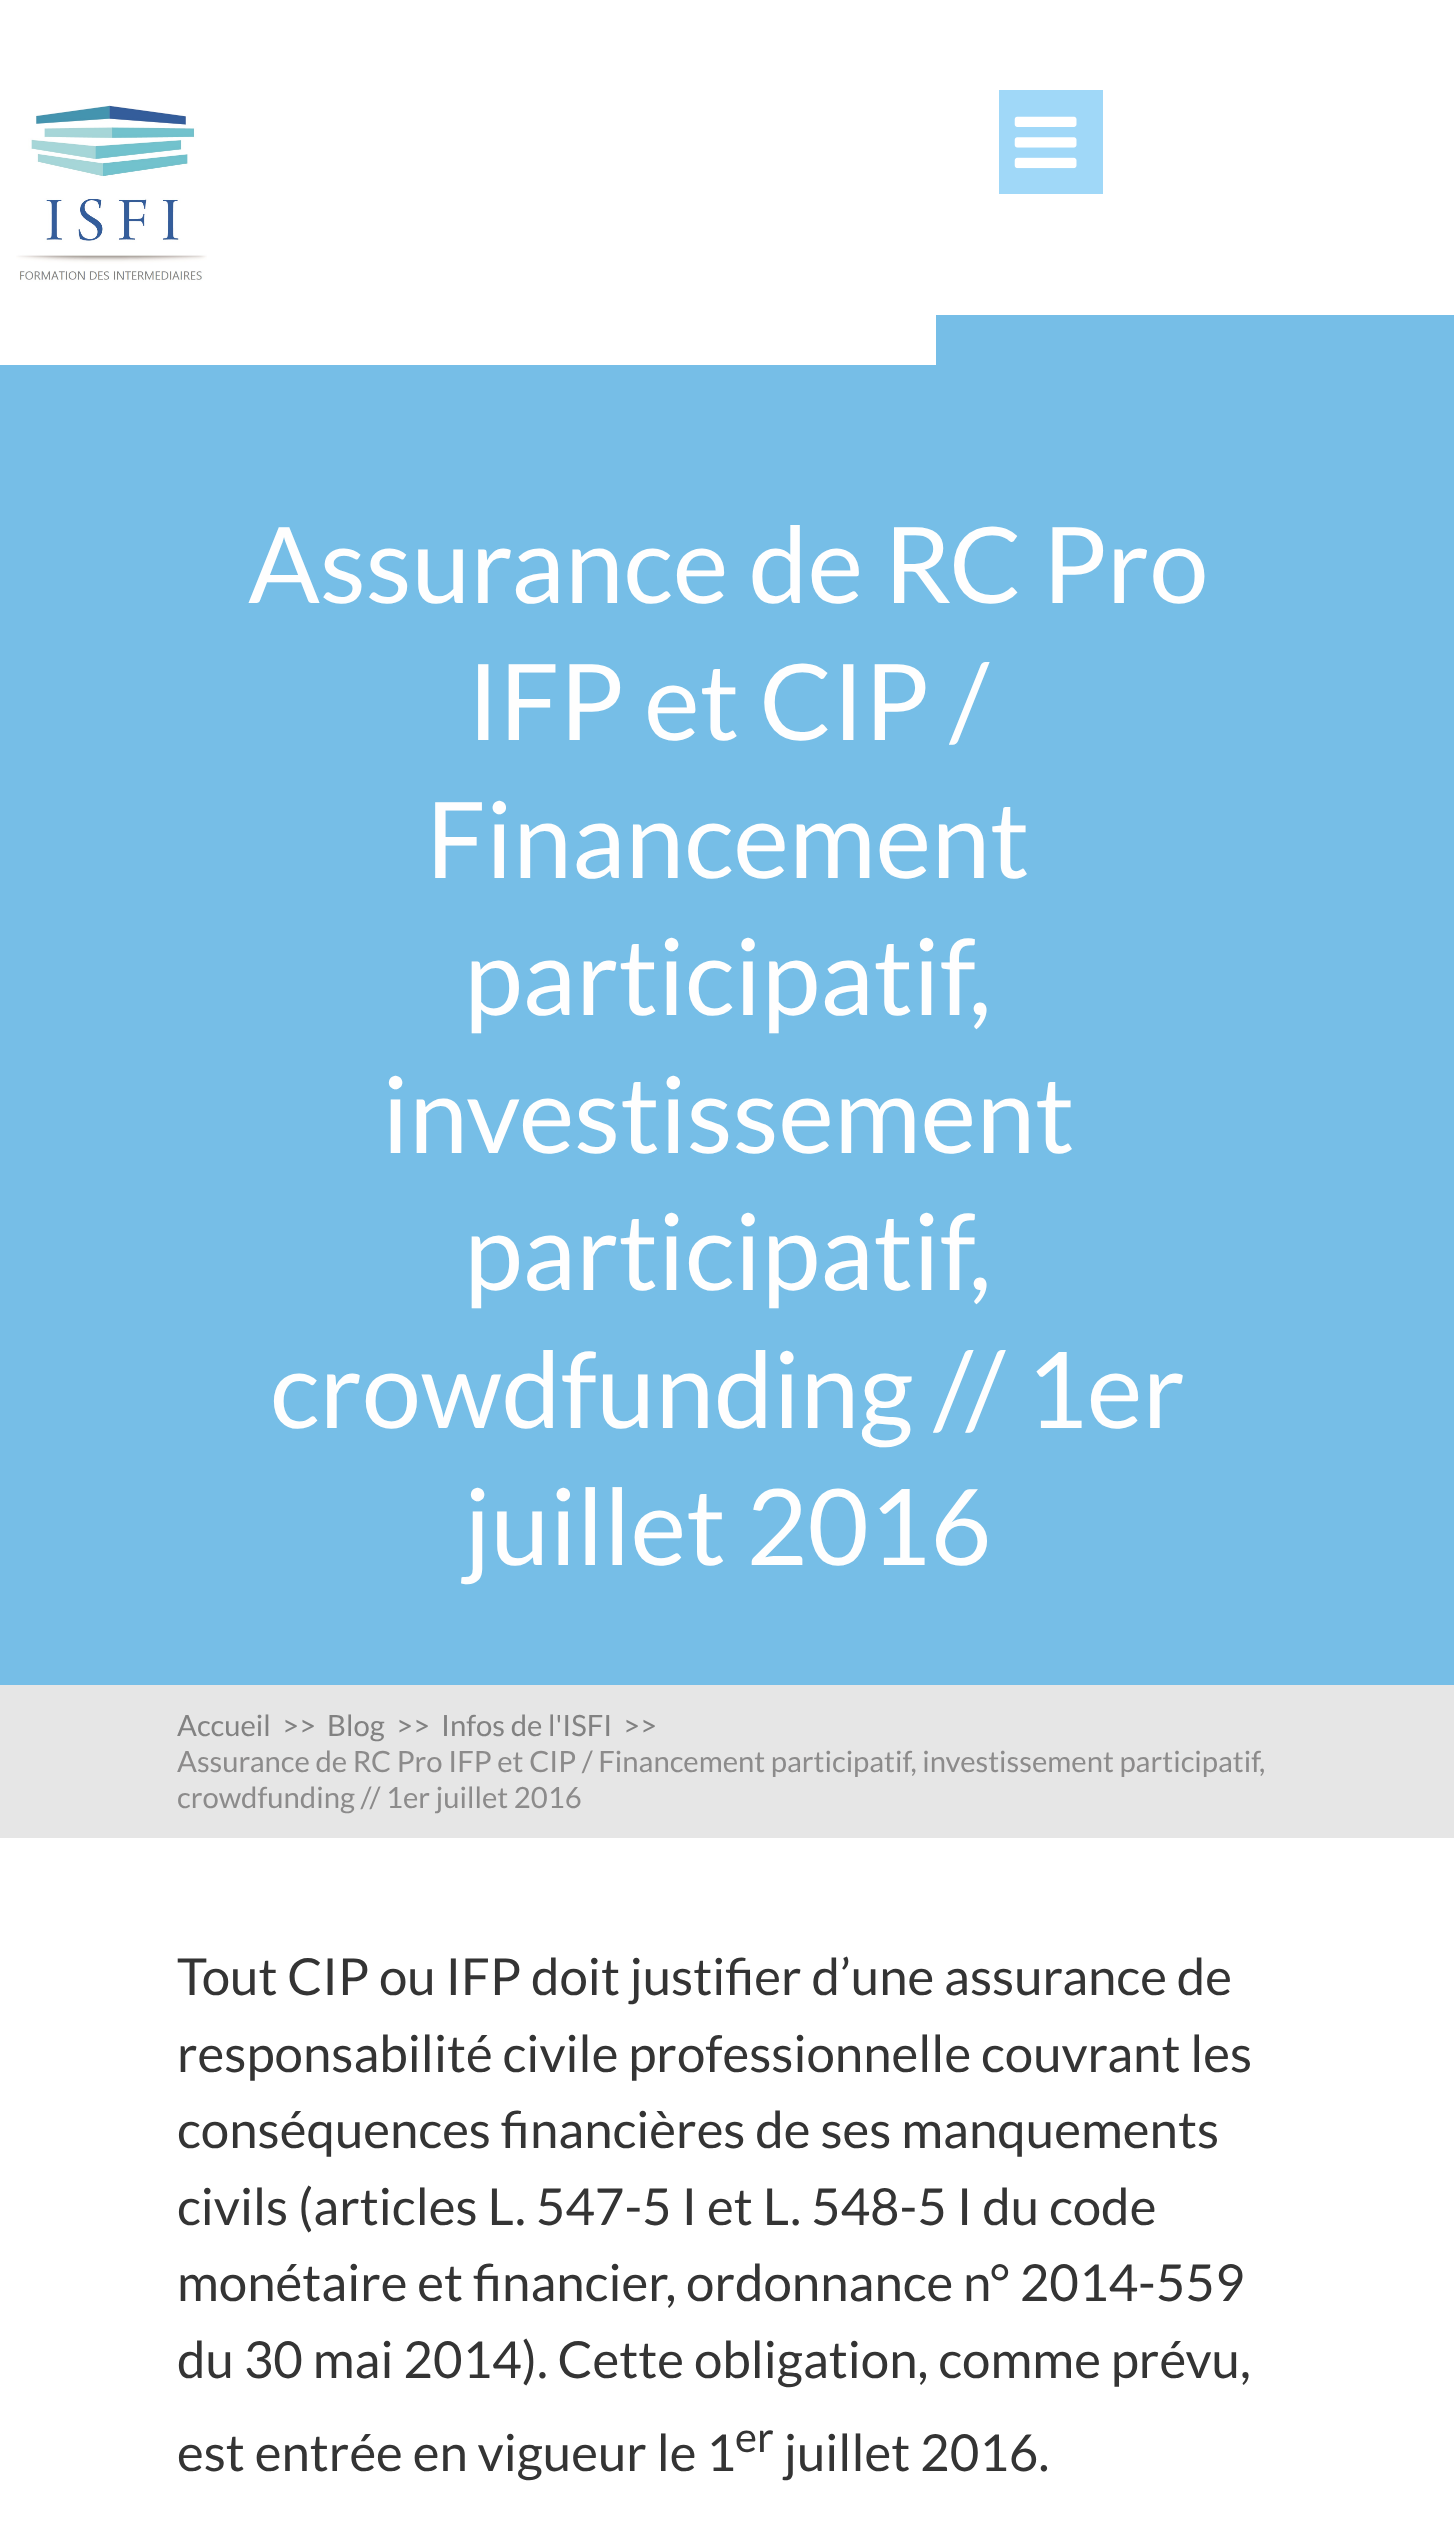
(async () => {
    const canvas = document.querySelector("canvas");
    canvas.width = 1454;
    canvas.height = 2538;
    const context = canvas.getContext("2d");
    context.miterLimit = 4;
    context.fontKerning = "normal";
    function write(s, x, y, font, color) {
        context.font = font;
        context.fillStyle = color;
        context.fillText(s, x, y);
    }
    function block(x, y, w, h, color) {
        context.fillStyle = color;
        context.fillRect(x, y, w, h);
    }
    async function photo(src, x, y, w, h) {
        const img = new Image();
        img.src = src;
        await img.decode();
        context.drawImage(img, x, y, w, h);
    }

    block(0, 0, 1454, 2538, "rgb(255, 255, 255)");
    block(0, 315, 1454, 1370, "rgb(118, 190, 231)");
    block(0, 315, 936, 50, "rgb(255, 255, 255)");
    await photo("media/1.png", 16, 105, 191, 177);
    block(999, 90, 104, 104, "rgb(160, 216, 248)");
    await photo("media/2.png", 1014, 116, 63, 53);
    write("Assurance de RC Pro", 248, 603, "105.75px Lato", "rgb(254, 254, 254)");
    write("IFP et CIP /", 467, 740, "105.75px Lato", "rgb(254, 254, 254)");
    write("Financement", 426, 878, "105.75px Lato", "rgb(254, 254, 254)");
    write("participatif,", 464, 1015, "105.75px Lato", "rgb(254, 254, 254)");
    write("investissement", 382, 1153, "105.75px Lato", "rgb(254, 254, 254)");
    write("participatif,", 464, 1290, "105.75px Lato", "rgb(254, 254, 254)");
    write("crowdfunding // 1er", 270, 1428, "105.75px Lato", "rgb(254, 254, 254)");
    write("juillet 2016", 464, 1565, "105.75px Lato", "rgb(254, 254, 254)");
    block(0, 1685, 1454, 153, "rgb(230, 230, 230)");
    write("Accueil", 177, 1736, "29.25px Lato", "rgb(130, 130, 130)");
    write(">>", 282, 1736, "29.25px Lato", "rgb(130, 130, 130)");
    write("Blog", 327, 1736, "29.25px Lato", "rgb(130, 130, 130)");
    write(">>", 396, 1736, "29.25px Lato", "rgb(130, 130, 130)");
    write("Infos de l'ISFI", 441, 1736, "29.25px Lato", "rgb(130, 130, 130)");
    write(">>", 623, 1736, "29.25px Lato", "rgb(130, 130, 130)");
    write("Assurance de RC Pro IFP et CIP / Financement participatif, investissement participatif,", 177, 1772, "29.25px Lato", "rgb(140, 139, 139)");
    write("crowdfunding // 1er juillet 2016", 177, 1808, "29.25px Lato", "rgb(140, 139, 139)");
    write("Tout CIP ou IFP doit justifier d’une assurance de", 177, 1995, "51px Lato", "rgb(52, 52, 52)");
    write("responsabilité civile professionnelle couvrant les", 177, 2072, "51px Lato", "rgb(52, 52, 52)");
    write("conséquences financières de ses manquements", 177, 2148, "51px Lato", "rgb(52, 52, 52)");
    write("civils (articles L. 547-5 I et L. 548-5 I du code", 177, 2225, "51px Lato", "rgb(52, 52, 52)");
    write("monétaire et financier, ordonnance n° 2014-559", 177, 2301, "51px Lato", "rgb(52, 52, 52)");
    write("du 30 mai 2014). Cette obligation, comme prévu,", 177, 2378, "51px Lato", "rgb(52, 52, 52)");
    write("est entrée en vigueur le 1", 177, 2471, "51px Lato", "rgb(52, 52, 52)");
    write("er", 735, 2452, "42px Lato", "rgb(52, 52, 52)");
    write("juillet 2016.", 784, 2471, "51px Lato", "rgb(52, 52, 52)");
})();
